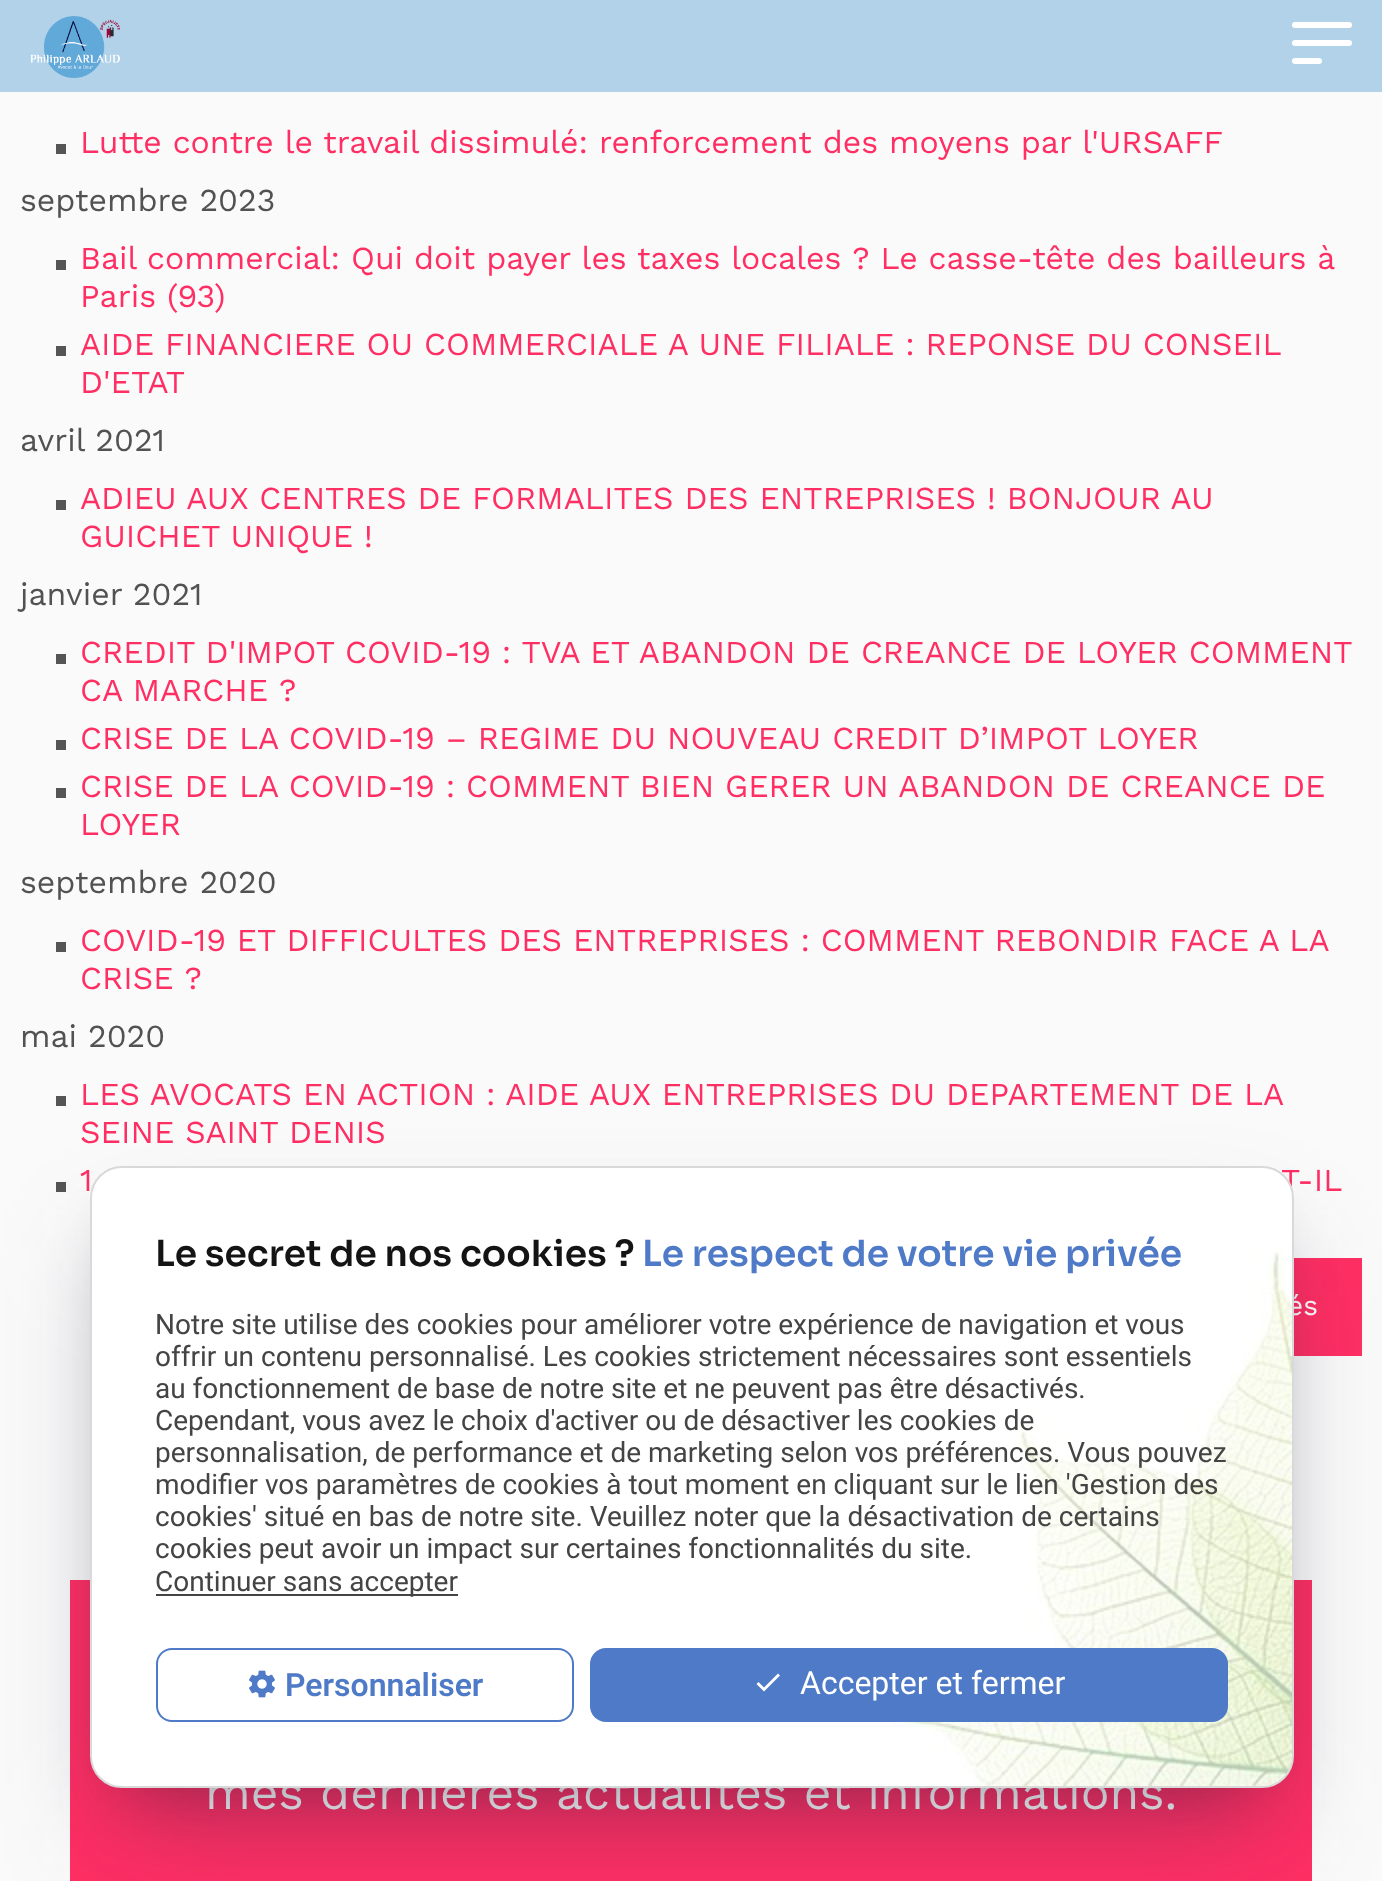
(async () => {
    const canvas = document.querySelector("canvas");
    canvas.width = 1382;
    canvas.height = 1881;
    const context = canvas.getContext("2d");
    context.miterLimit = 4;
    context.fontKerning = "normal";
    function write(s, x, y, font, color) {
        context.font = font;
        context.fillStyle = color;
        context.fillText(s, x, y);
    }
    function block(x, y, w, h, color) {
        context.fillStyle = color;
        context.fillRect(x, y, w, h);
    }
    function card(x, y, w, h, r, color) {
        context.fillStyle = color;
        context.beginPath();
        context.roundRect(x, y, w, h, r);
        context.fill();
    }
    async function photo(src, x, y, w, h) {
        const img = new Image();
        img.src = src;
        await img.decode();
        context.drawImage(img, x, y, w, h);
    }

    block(0, 0, 1382, 1881, "rgb(250, 250, 250)");
    block(0, 0, 1382, 92, "rgb(177, 210, 232)");
    await photo("media/1.png", 30, 16, 90, 62);
    card(1292, 22, 60, 6, 3, "rgb(255, 255, 255)");
    card(1292, 40, 60, 6, 3, "rgb(255, 255, 255)");
    card(1292, 58, 30, 6, 3, "rgb(255, 255, 255)");
    block(56, 144, 10, 10, "rgb(85, 85, 85)");
    write("Lutte contre le travail dissimulé: renforcement des moyens par l'URSAFF", 80, 153, "32px Work Sans", "rgb(255, 46, 99)");
    write("septembre 2023", 20, 211, "32px Work Sans", "rgb(82, 82, 82)");
    block(56, 260, 10, 10, "rgb(85, 85, 85)");
    write("Bail commercial: Qui doit payer les taxes locales ? Le casse-tête des bailleurs à", 80, 269, "32px Work Sans", "rgb(255, 46, 99)");
    write("Paris (93)", 80, 307, "32px Work Sans", "rgb(255, 46, 99)");
    block(56, 346, 10, 10, "rgb(85, 85, 85)");
    write("AIDE FINANCIERE OU COMMERCIALE A UNE FILIALE : REPONSE DU CONSEIL", 80, 355, "32px Work Sans", "rgb(255, 46, 99)");
    write("D'ETAT", 80, 393, "32px Work Sans", "rgb(255, 46, 99)");
    write("avril 2021", 20, 451, "32px Work Sans", "rgb(82, 82, 82)");
    block(56, 500, 10, 10, "rgb(85, 85, 85)");
    write("ADIEU AUX CENTRES DE FORMALITES DES ENTREPRISES ! BONJOUR AU", 80, 509, "32px Work Sans", "rgb(255, 46, 99)");
    write("GUICHET UNIQUE !", 80, 547, "32px Work Sans", "rgb(255, 46, 99)");
    write("janvier 2021", 20, 605, "32px Work Sans", "rgb(82, 82, 82)");
    block(56, 654, 10, 10, "rgb(85, 85, 85)");
    write("CREDIT D'IMPOT COVID-19 : TVA ET ABANDON DE CREANCE DE LOYER COMMENT", 80, 663, "32px Work Sans", "rgb(255, 46, 99)");
    write("CA MARCHE ?", 80, 701, "32px Work Sans", "rgb(255, 46, 99)");
    block(56, 740, 10, 10, "rgb(85, 85, 85)");
    write("CRISE DE LA COVID-19 – REGIME DU NOUVEAU CREDIT D’IMPOT LOYER", 80, 749, "32px Work Sans", "rgb(255, 46, 99)");
    block(56, 788, 10, 10, "rgb(85, 85, 85)");
    write("CRISE DE LA COVID-19 : COMMENT BIEN GERER UN ABANDON DE CREANCE DE", 80, 797, "32px Work Sans", "rgb(255, 46, 99)");
    write("LOYER", 80, 835, "32px Work Sans", "rgb(255, 46, 99)");
    write("septembre 2020", 20, 893, "32px Work Sans", "rgb(82, 82, 82)");
    block(56, 942, 10, 10, "rgb(85, 85, 85)");
    context.wordSpacing = "-0.1px";
    write("COVID-19 ET DIFFICULTES DES ENTREPRISES : COMMENT REBONDIR FACE A LA", 80, 951, "32px Work Sans", "rgb(255, 46, 99)");
    context.wordSpacing = "0px";
    write("CRISE ?", 80, 989, "32px Work Sans", "rgb(255, 46, 99)");
    write("mai 2020", 20, 1047, "32px Work Sans", "rgb(82, 82, 82)");
    block(56, 1096, 10, 10, "rgb(85, 85, 85)");
    write("LES AVOCATS EN ACTION : AIDE AUX ENTREPRISES DU DEPARTEMENT DE LA", 80, 1105, "32px Work Sans", "rgb(255, 46, 99)");
    write("SEINE SAINT DENIS", 80, 1143, "32px Work Sans", "rgb(255, 46, 99)");
    block(56, 1182, 10, 10, "rgb(85, 85, 85)");
    write("1", 80, 1191, "32px Work Sans", "rgb(255, 46, 99)");
    write("T-IL", 1281, 1191, "32px Work Sans", "rgb(255, 46, 99)");
    block(1294, 1258, 68, 98, "rgb(255, 46, 99)");
    write("és", 1287, 1315, "28px Work Sans", "rgb(255, 255, 255)");
    block(70, 1580, 1242, 301, "rgb(255, 46, 99)");
    write("mes dernières actualités et informations.", 205, 1809, "48px Work Sans", "rgb(255, 255, 255)");
    context.fillStyle = "rgba(0, 0, 0, 0.3)";
    context.filter = "blur(36px)";
    context.beginPath();
    context.rect(126, 1238, 1132, 550);
    context.fill();
    context.filter = "none";
    context.fillStyle = "rgba(50, 50, 93, 0.25)";
    context.filter = "blur(60px)";
    context.beginPath();
    context.roundRect(114, 1250, 1156, 574, 8);
    context.fill();
    context.filter = "none";
    context.fillStyle = "rgb(255, 255, 255)";
    context.beginPath();
    context.roundRect(91, 1167, 1202, 620, 31);
    context.fill();
    context.strokeStyle = "rgb(217, 217, 217)";
    context.lineWidth = 2;
    context.stroke();
    write("Le secret de nos cookies ?", 155, 1266, "600 36px Sora", "rgb(20, 20, 20)");
    await photo("media/3.png", 892, 1246, 400, 540);
    write("Le respect de votre vie privée", 642, 1266, "600 36px Sora", "rgb(78, 122, 199)");
    write("Notre site utilise des cookies pour améliorer votre expérience de navigation et vous", 155, 1334, "28px Roboto", "rgb(68, 68, 68)");
    write("offrir un contenu personnalisé. Les cookies strictement nécessaires sont essentiels", 155, 1366, "28px Roboto", "rgb(68, 68, 68)");
    write("au fonctionnement de base de notre site et ne peuvent pas être désactivés.", 155, 1398, "28px Roboto", "rgb(68, 68, 68)");
    write("Cependant, vous avez le choix d'activer ou de désactiver les cookies de", 155, 1430, "28px Roboto", "rgb(68, 68, 68)");
    write("personnalisation, de performance et de marketing selon vos préférences. Vous pouvez", 155, 1462, "28px Roboto", "rgb(68, 68, 68)");
    write("modifier vos paramètres de cookies à tout moment en cliquant sur le lien 'Gestion des", 155, 1494, "28px Roboto", "rgb(68, 68, 68)");
    write("cookies' situé en bas de notre site. Veuillez noter que la désactivation de certains", 155, 1526, "28px Roboto", "rgb(68, 68, 68)");
    write("cookies peut avoir un impact sur certaines fonctionnalités du site.", 155, 1558, "28px Roboto", "rgb(68, 68, 68)");
    block(156, 1594, 302, 2, "rgb(68, 68, 68)");
    write("Continuer sans accepter", 155, 1591, "28px Roboto", "rgb(68, 68, 68)");
    context.beginPath();
    context.roundRect(157, 1649, 416, 72, 15);
    context.strokeStyle = "rgb(78, 122, 199)";
    context.stroke();
    await photo("media/2.png", 249, 1670, 26, 28);
    write("Personnaliser", 285, 1696, "600 32px Roboto", "rgb(78, 122, 199)");
    card(590, 1648, 638, 74, 16, "rgb(78, 122, 199)");
    context.fillStyle = "rgb(255, 255, 255)";
    context.beginPath();
    context.moveTo(764, 1687.5);
    context.lineTo(778, 1673.5);
    context.lineTo(780, 1675.5);
    context.lineTo(764, 1691.5);
    context.lineTo(756.5, 1684);
    context.lineTo(758.5, 1682);
    context.closePath();
    context.fill();
    write("Accepter et fermer", 800, 1694, "32px Roboto", "rgb(255, 255, 255)");
})();
